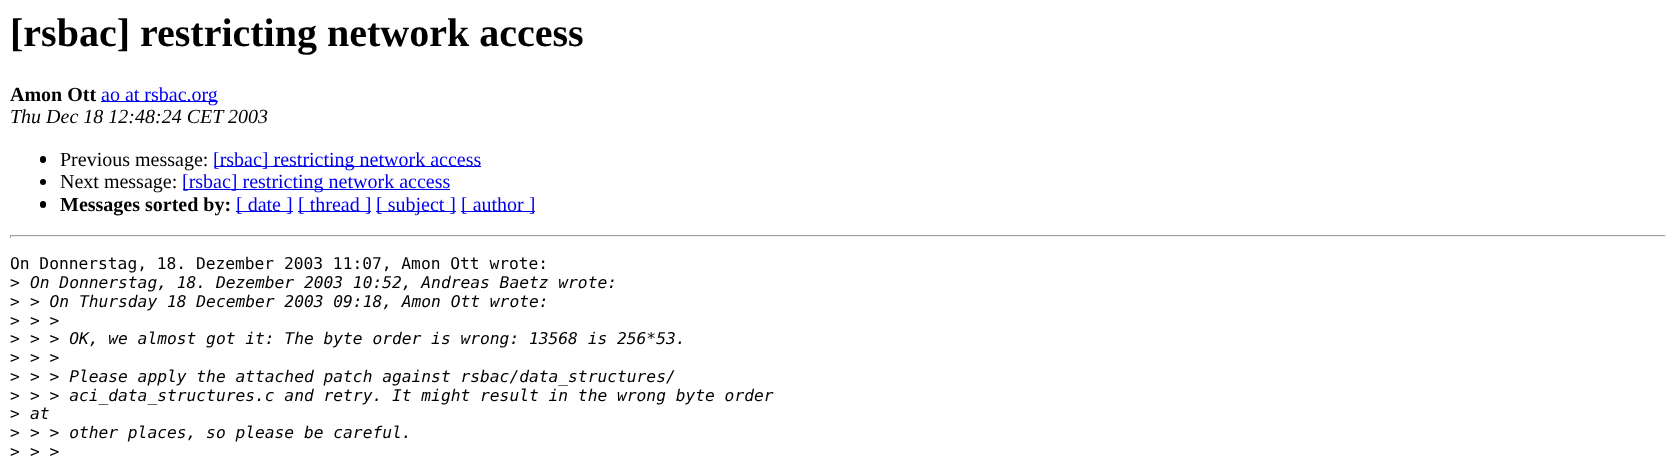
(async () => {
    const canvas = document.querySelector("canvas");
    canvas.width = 1676;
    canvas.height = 462;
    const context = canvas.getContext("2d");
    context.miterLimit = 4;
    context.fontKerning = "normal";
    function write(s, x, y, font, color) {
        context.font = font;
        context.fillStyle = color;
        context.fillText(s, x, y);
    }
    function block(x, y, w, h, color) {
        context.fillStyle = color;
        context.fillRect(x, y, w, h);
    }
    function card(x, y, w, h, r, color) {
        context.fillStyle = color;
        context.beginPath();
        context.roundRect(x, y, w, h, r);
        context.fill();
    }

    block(0, 0, 1676, 462, "rgb(255, 255, 255)");
    write("[rsbac] restricting network access", 10, 46, "bold 40px Liberation Serif", "rgb(0, 0, 0)");
    write("Amon Ott", 10, 101, "bold 20px Liberation Serif", "rgb(0, 0, 0)");
    block(101, 101, 117, 1, "rgb(0, 0, 238)");
    write("ao at rsbac.org", 101, 101, "20px Liberation Serif", "rgb(0, 0, 238)");
    write("Thu Dec 18 12:48:24 CET 2003", 10, 123, "italic 20px Liberation Serif", "rgb(0, 0, 0)");
    card(40, 156, 6, 7, 3, "rgb(0, 0, 0)");
    write("Previous message:", 60, 166, "20px Liberation Serif", "rgb(0, 0, 0)");
    block(214, 166, 267, 1, "rgb(0, 0, 238)");
    write("[rsbac] restricting network access", 213, 166, "20px Liberation Serif", "rgb(0, 0, 238)");
    context.fillStyle = "rgb(0, 0, 0)";
    context.beginPath();
    context.arc(43, 182, 3, 0, Math.PI * 2);
    context.fill();
    write("Next message:", 60, 188, "20px Liberation Serif", "rgb(0, 0, 0)");
    block(183, 189, 267, 1, "rgb(0, 0, 238)");
    write("[rsbac] restricting network access", 182, 188, "20px Liberation Serif", "rgb(0, 0, 238)");
    card(40, 201, 6, 7, 3, "rgb(0, 0, 0)");
    write("Messages sorted by:", 60, 211, "bold 20px Liberation Serif", "rgb(0, 0, 0)");
    block(236, 211, 57, 1, "rgb(0, 0, 238)");
    write("[ date ]", 236, 211, "20px Liberation Serif", "rgb(0, 0, 238)");
    block(298, 211, 73, 1, "rgb(0, 0, 238)");
    write("[ thread ]", 298, 211, "20px Liberation Serif", "rgb(0, 0, 238)");
    block(376, 211, 80, 1, "rgb(0, 0, 238)");
    write("[ subject ]", 376, 211, "20px Liberation Serif", "rgb(0, 0, 238)");
    block(461, 211, 74, 1, "rgb(0, 0, 238)");
    write("[ author ]", 461, 211, "20px Liberation Serif", "rgb(0, 0, 238)");
    block(10, 235, 1656, 1, "rgb(159, 159, 159)");
    block(1665, 235, 1, 3, "rgb(238, 238, 238)");
    block(10, 236, 1656, 1, "rgb(238, 238, 238)");
    block(10, 235, 1, 3, "rgb(159, 159, 159)");
    write("On Donnerstag, 18. Dezember 2003 11:07, Amon Ott wrote:", 10, 269, "16.25px DejaVu Sans Mono", "rgb(0, 0, 0)");
    write(">", 10, 288, "16.25px DejaVu Sans Mono", "rgb(0, 0, 0)");
    write("On Donnerstag, 18. Dezember 2003 10:52, Andreas Baetz wrote:", 30, 288, "italic 16.25px DejaVu Sans Mono", "rgb(0, 0, 0)");
    write(">", 10, 307, "16.25px DejaVu Sans Mono", "rgb(0, 0, 0)");
    write("> On Thursday 18 December 2003 09:18, Amon Ott wrote:", 30, 307, "italic 16.25px DejaVu Sans Mono", "rgb(0, 0, 0)");
    write(">", 10, 326, "16.25px DejaVu Sans Mono", "rgb(0, 0, 0)");
    write("> >", 30, 326, "italic 16.25px DejaVu Sans Mono", "rgb(0, 0, 0)");
    write(">", 10, 344, "16.25px DejaVu Sans Mono", "rgb(0, 0, 0)");
    write("> > OK, we almost got it: The byte order is wrong: 13568 is 256*53.", 30, 344, "italic 16.25px DejaVu Sans Mono", "rgb(0, 0, 0)");
    write(">", 10, 363, "16.25px DejaVu Sans Mono", "rgb(0, 0, 0)");
    write("> >", 30, 363, "italic 16.25px DejaVu Sans Mono", "rgb(0, 0, 0)");
    write(">", 10, 382, "16.25px DejaVu Sans Mono", "rgb(0, 0, 0)");
    write("> > Please apply the attached patch against rsbac/data_structures/", 30, 382, "italic 16.25px DejaVu Sans Mono", "rgb(0, 0, 0)");
    write(">", 10, 401, "16.25px DejaVu Sans Mono", "rgb(0, 0, 0)");
    write("> > aci_data_structures.c and retry. It might result in the wrong byte order", 30, 401, "italic 16.25px DejaVu Sans Mono", "rgb(0, 0, 0)");
    write(">", 10, 419, "16.25px DejaVu Sans Mono", "rgb(0, 0, 0)");
    write("at", 30, 419, "italic 16.25px DejaVu Sans Mono", "rgb(0, 0, 0)");
    write(">", 10, 438, "16.25px DejaVu Sans Mono", "rgb(0, 0, 0)");
    write("> > other places, so please be careful.", 30, 438, "italic 16.25px DejaVu Sans Mono", "rgb(0, 0, 0)");
    write(">", 10, 457, "16.25px DejaVu Sans Mono", "rgb(0, 0, 0)");
    write("> >", 30, 457, "italic 16.25px DejaVu Sans Mono", "rgb(0, 0, 0)");
})();
